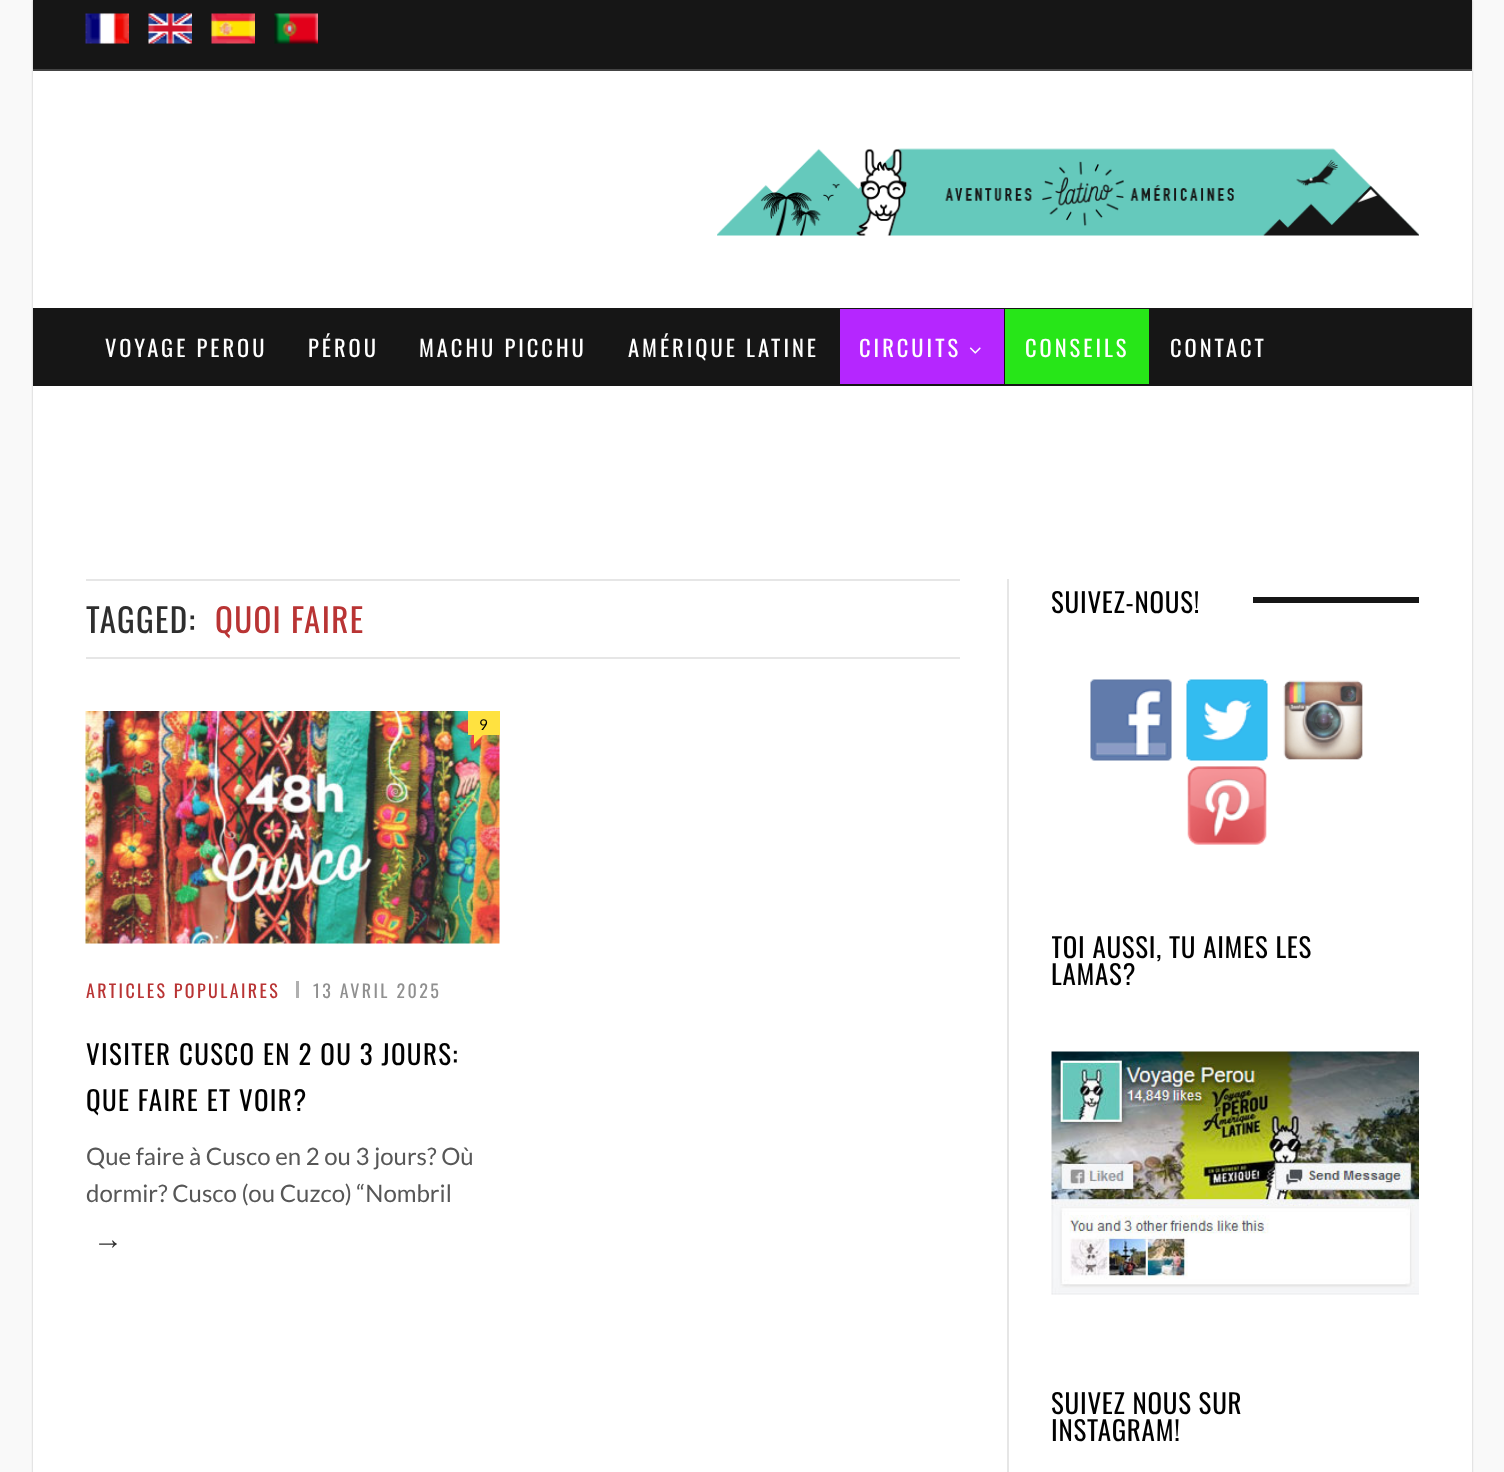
(async () => {
    const canvas = document.querySelector("canvas");
    canvas.width = 1504;
    canvas.height = 1472;
    const context = canvas.getContext("2d");
    context.miterLimit = 4;
    context.fontKerning = "normal";
    function write(s, x, y, font, color) {
        context.font = font;
        context.fillStyle = color;
        context.fillText(s, x, y);
    }
    function block(x, y, w, h, color) {
        context.fillStyle = color;
        context.fillRect(x, y, w, h);
    }
    async function photo(src, x, y, w, h) {
        const img = new Image();
        img.src = src;
        await img.decode();
        context.drawImage(img, x, y, w, h);
    }

    block(0, 0, 1504, 1472, "rgb(249, 249, 249)");
    context.fillStyle = "rgba(0, 0, 0, 0.25)";
    context.filter = "blur(1px)";
    context.beginPath();
    context.rect(33, 0, 1439, 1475);
    context.fill();
    context.filter = "none";
    block(33, 71, 1439, 1401, "rgb(255, 255, 255)");
    block(33, 0, 1439, 69, "rgb(22, 22, 22)");
    block(33, 69, 1439, 2, "rgb(68, 68, 68)");
    await photo("media/1.png", 85, 13, 44, 31);
    await photo("media/2.png", 148, 13, 44, 31);
    await photo("media/3.png", 211, 13, 44, 31);
    await photo("media/4.png", 274, 13, 44, 31);
    await photo("media/5.png", 717, 148, 702, 88);
    block(33, 308, 1439, 78, "rgb(22, 22, 22)");
    context.letterSpacing = "3px";
    write("VOYAGE PEROU", 105, 357, "22.5px Oswald", "rgb(255, 255, 255)");
    write("PÉROU", 308, 357, "22.5px Oswald", "rgb(255, 255, 255)");
    write("MACHU PICCHU", 419, 357, "22.5px Oswald", "rgb(255, 255, 255)");
    write("AMÉRIQUE LATINE", 628, 357, "22.5px Oswald", "rgb(255, 255, 255)");
    block(840, 309, 164, 75, "rgb(181, 38, 255)");
    write("CIRCUITS", 859, 357, "22.5px Oswald", "rgb(255, 255, 255)");
    await photo("media/6.png", 969, 347, 12, 7);
    block(1005, 309, 144, 75, "rgb(39, 230, 24)");
    write("CONSEILS", 1025, 357, "22.5px Oswald", "rgb(255, 255, 255)");
    write("CONTACT", 1170, 357, "22.5px Oswald", "rgb(255, 255, 255)");
    block(86, 579, 874, 2, "rgb(230, 230, 230)");
    block(86, 657, 874, 2, "rgb(230, 230, 230)");
    context.letterSpacing = "1.35px";
    write("TAGGED:", 86, 633, "33px Oswald", "rgb(46, 46, 46)");
    write("QUOI FAIRE", 215, 633, "33px Oswald", "rgb(185, 52, 52)");
    await photo("media/7.png", 85, 711, 415, 233);
    block(468, 711, 32, 24, "rgb(255, 226, 64)");
    context.letterSpacing = "0px";
    write("9", 479, 730, "15px Lato", "rgb(1, 1, 1)");
    context.fillStyle = "rgb(255, 226, 64)";
    context.beginPath();
    context.moveTo(474, 744);
    context.lineTo(474, 735);
    context.lineTo(483, 735);
    context.closePath();
    context.fill();
    context.letterSpacing = "2.4px";
    write("ARTICLES POPULAIRES", 86, 998, "18px Oswald", "rgb(185, 52, 52)");
    block(296, 981, 3, 17, "rgb(176, 176, 176)");
    write("13 AVRIL 2025", 313, 998, "18px Oswald", "rgb(144, 144, 144)");
    context.letterSpacing = "1.35px";
    write("VISITER CUSCO EN 2 OU 3 JOURS:", 86, 1065, "27px Oswald", "rgb(1, 1, 1)");
    write("QUE FAIRE ET VOIR?", 86, 1111, "27px Oswald", "rgb(1, 1, 1)");
    context.letterSpacing = "0px";
    write("Que faire à Cusco en 2 ou 3 jours? Où", 86, 1165, "24px Lato", "rgb(87, 87, 87)");
    write("dormir? Cusco (ou Cuzco) “Nombril", 86, 1202, "24px Lato", "rgb(87, 87, 87)");
    write("→", 93, 1249, "30px Liberation Sans", "rgb(46, 46, 46)");
    block(1007, 579, 2, 893, "rgb(230, 230, 230)");
    context.letterSpacing = "0.75px";
    write("SUIVEZ-NOUS!", 1051, 613, "27px Oswald", "rgb(1, 1, 1)");
    block(1253, 597, 166, 6, "rgb(22, 22, 22)");
    await photo("media/8.png", 1090, 679, 82, 82);
    await photo("media/9.png", 1186, 679, 82, 82);
    await photo("media/10.png", 1283, 680, 80, 80);
    await photo("media/11.png", 1187, 766, 80, 79);
    context.save();
    context.beginPath();
    context.rect(1052, 924, 367, 65);
    context.clip();
    write("TOI AUSSI, TU AIMES LES", 1051, 958, "27px Oswald", "rgb(1, 1, 1)");
    context.restore();
    write("LAMAS?", 1051, 985, "27px Oswald", "rgb(1, 1, 1)");
    await photo("media/12.png", 1051, 1051, 368, 244);
    write("SUIVEZ NOUS SUR", 1051, 1414, "27px Oswald", "rgb(1, 1, 1)");
    write("INSTAGRAM!", 1051, 1441, "27px Oswald", "rgb(1, 1, 1)");
})();
